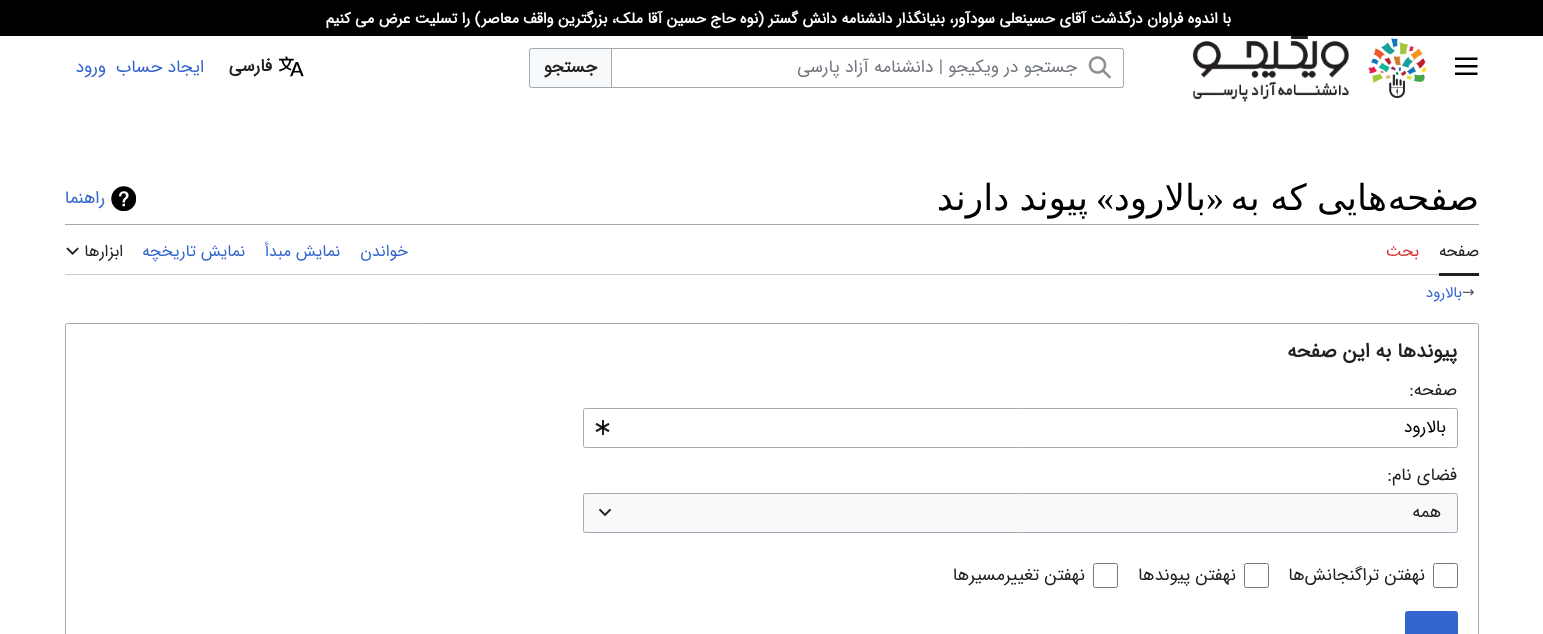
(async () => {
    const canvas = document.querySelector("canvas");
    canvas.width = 1543;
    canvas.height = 634;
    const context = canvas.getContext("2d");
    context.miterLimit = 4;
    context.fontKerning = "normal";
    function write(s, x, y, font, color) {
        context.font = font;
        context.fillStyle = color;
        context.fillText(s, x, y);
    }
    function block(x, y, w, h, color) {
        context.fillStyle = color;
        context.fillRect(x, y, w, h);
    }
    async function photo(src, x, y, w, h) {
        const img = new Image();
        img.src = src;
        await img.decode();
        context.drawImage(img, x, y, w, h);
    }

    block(0, 0, 1543, 634, "rgb(255, 255, 255)");
    block(0, 0, 1543, 36, "rgb(0, 0, 0)");
    context.direction = "rtl";
    write("با اندوه فراوان درگذشت آقای حسینعلی سودآور، بنیانگذار دانشنامه دانش گستر (نوه حاج حسین آقا ملک، بزرگترین واقف معاصر) را تسلیت عرض می کنیم", 1231, 23, "bold 15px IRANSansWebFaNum", "rgb(255, 255, 255)");
    await photo("media/1.png", 1455, 57, 23, 18);
    await photo("media/2.png", 1368, 38, 59, 60);
    await photo("media/3.png", 1192, 36, 157, 66);
    context.beginPath();
    context.roundRect(529.5, 48.5, 594, 39, 2);
    context.strokeStyle = "rgb(162, 169, 177)";
    context.stroke();
    context.fillStyle = "rgb(248, 249, 250)";
    context.beginPath();
    context.roundRect(529.5, 48.5, 83, 39, [2, 0, 0, 2]);
    context.fill();
    context.stroke();
    context.fillStyle = "rgb(255, 255, 255)";
    context.beginPath();
    context.roundRect(611.5, 48.5, 512, 39, [0, 2, 2, 0]);
    context.fill();
    context.stroke();
    await photo("media/4.png", 1088, 56, 23, 23);
    write("جستجو در ویکیجو | دانشنامه آزاد پارسی", 1077, 72, "17.5px IRANSansWebFaNum", "rgb(114, 119, 125)");
    write("جستجو", 597, 72, "bold 17.5px IRANSansWebFaNum", "rgb(32, 33, 34)");
    await photo("media/5.png", 279, 56, 25, 21);
    write("فارسی", 272, 71, "bold 17.5px IRANSansWebFaNum", "rgb(32, 33, 34)");
    write("ایجاد حساب", 204, 72, "17.5px IRANSansWebFaNum", "rgb(51, 102, 204)");
    write("ورود", 106, 72, "17.5px IRANSansWebFaNum", "rgb(51, 102, 204)");
    context.fillStyle = "rgb(162, 169, 177)";
    context.beginPath();
    context.moveTo(65, 224);
    context.lineTo(65, 225);
    context.lineTo(1479, 225);
    context.lineTo(1479, 175);
    context.lineTo(1479, 224);
    context.closePath();
    context.fill();
    write("صفحه", 1479, 210, "36px DejaVu Sans", "rgb(0, 0, 0)");
    context.wordSpacing = "-1px";
    write("هایی که به", 1387, 210, "36px DejaVu Sans", "rgb(0, 0, 0)");
    context.wordSpacing = "0px";
    write("«", 1224, 210, "36px Liberation Serif", "rgb(0, 0, 0)");
    write("بالارود", 1206, 210, "36px DejaVu Sans", "rgb(0, 0, 0)");
    write("»", 1114, 210, "36px Liberation Serif", "rgb(0, 0, 0)");
    context.wordSpacing = "-1px";
    write("پیوند دارند", 1088, 210, "36px DejaVu Sans", "rgb(0, 0, 0)");
    await photo("media/6.png", 111, 186, 25, 25);
    context.wordSpacing = "0px";
    write("راهنما", 105, 203, "17.5px IRANSansWebFaNum", "rgb(51, 102, 204)");
    context.fillStyle = "rgb(200, 204, 209)";
    context.beginPath();
    context.moveTo(65, 274);
    context.lineTo(65, 275);
    context.lineTo(1479, 275);
    context.lineTo(1479, 225);
    context.lineTo(1479, 274);
    context.closePath();
    context.fill();
    block(1439, 273, 40, 3, "rgb(32, 33, 34)");
    write("صفحه", 1479, 256, "16.25px IRANSansWebFaNum", "rgb(32, 33, 34)");
    write("بحث", 1419, 256, "16.25px IRANSansWebFaNum", "rgb(215, 51, 51)");
    write("خواندن", 408, 256, "16.25px IRANSansWebFaNum", "rgb(51, 102, 204)");
    write("نمایش مبدأ", 340, 256, "16.25px IRANSansWebFaNum", "rgb(51, 102, 204)");
    write("نمایش تاریخچه", 245, 256, "16.25px IRANSansWebFaNum", "rgb(51, 102, 204)");
    write("ابزارها", 123, 256, "16.25px IRANSansWebFaNum", "rgb(32, 33, 34)");
    await photo("media/7.png", 66, 247, 13, 8);
    context.direction = "ltr";
    write("→", 1462, 297, "15px DejaVu Sans", "rgb(84, 89, 93)");
    context.direction = "rtl";
    write("بالارود", 1462, 297, "15px IRANSansWebFaNum", "rgb(51, 102, 204)");
    context.beginPath();
    context.roundRect(65.5, 323.5, 1413, 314, 2);
    context.stroke();
    write("پیوندها به این صفحه", 1457, 357, "bold 20px IRANSansWebFaNum", "rgb(32, 33, 34)");
    write("صفحه:", 1457, 395, "17.5px IRANSansWebFaNum", "rgb(32, 33, 34)");
    context.beginPath();
    context.roundRect(583.5, 408.5, 874, 39, 2);
    context.stroke();
    write("بالارود", 1446, 432, "17.5px IRANSansWebFaNum", "rgb(0, 0, 0)");
    await photo("media/8.png", 595, 420, 15, 15);
    write("فضای نام:", 1457, 480, "17.5px IRANSansWebFaNum", "rgb(32, 33, 34)");
    block(583, 493, 875, 40, "rgb(248, 249, 250)");
    context.beginPath();
    context.roundRect(583.5, 493.5, 874, 39, 2);
    context.stroke();
    write("همه", 1441, 517, "17.5px IRANSansWebFaNum", "rgb(32, 33, 34)");
    await photo("media/9.png", 599, 508, 13, 9);
    context.beginPath();
    context.roundRect(1433.5, 563.5, 24, 24, 2);
    context.strokeStyle = "rgb(114, 119, 125)";
    context.stroke();
    write("نهفتن تراگنجانش‌ها", 1425, 580, "17.5px IRANSansWebFaNum", "rgb(32, 33, 34)");
    context.beginPath();
    context.roundRect(1244.5, 563.5, 24, 24, 2);
    context.stroke();
    write("نهفتن پیوندها", 1236, 580, "17.5px IRANSansWebFaNum", "rgb(32, 33, 34)");
    context.beginPath();
    context.roundRect(1093.5, 563.5, 24, 24, 2);
    context.stroke();
    write("نهفتن تغییرمسیرها", 1085, 580, "17.5px IRANSansWebFaNum", "rgb(32, 33, 34)");
    context.fillStyle = "rgb(51, 102, 204)";
    context.beginPath();
    context.roundRect(1405.5, 611.5, 52, 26, 2);
    context.fill();
    context.strokeStyle = "rgb(51, 102, 204)";
    context.stroke();
})();
